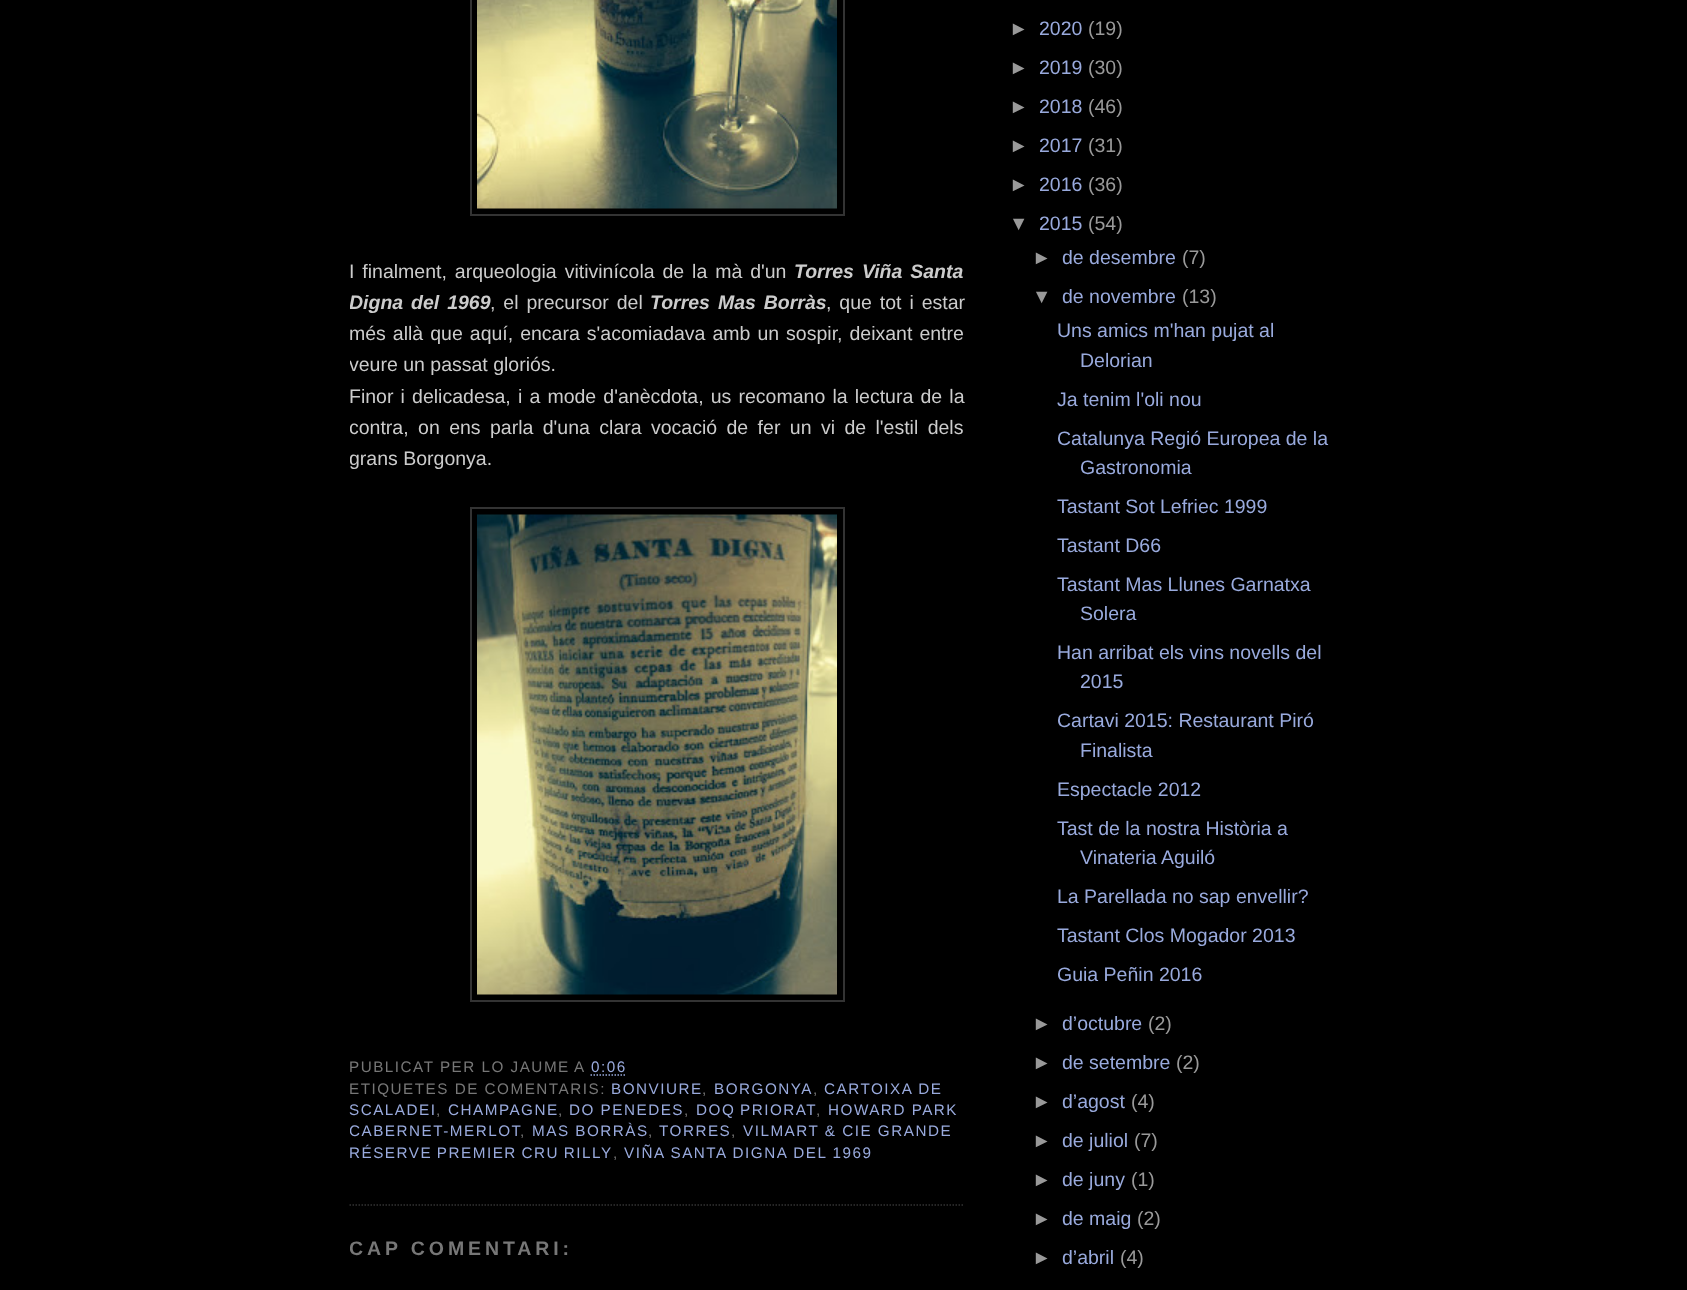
(async () => {
    const canvas = document.querySelector("canvas");
    canvas.width = 1687;
    canvas.height = 1290;
    const context = canvas.getContext("2d");
    context.miterLimit = 4;
    context.fontKerning = "normal";
    function write(s, x, y, font, color) {
        context.font = font;
        context.fillStyle = color;
        context.fillText(s, x, y);
    }
    function block(x, y, w, h, color) {
        context.fillStyle = color;
        context.fillRect(x, y, w, h);
    }
    async function photo(src, x, y, w, h) {
        const img = new Image();
        img.src = src;
        await img.decode();
        context.drawImage(img, x, y, w, h);
    }

    block(0, 0, 1687, 1290, "rgb(0, 0, 0)");
    context.beginPath();
    context.moveTo(349.5, 1205);
    context.lineTo(964.5, 1205);
    context.strokeStyle = "rgb(51, 51, 51)";
    context.lineWidth = 1.5;
    context.setLineDash([1.5, 1.5]);
    context.stroke();
    context.lineWidth = 2;
    context.setLineDash([]);
    context.strokeRect(471, -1, 373, 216);
    await photo("media/1.png", 477, 0, 360, 209);
    context.wordSpacing = "2.5px";
    write("I finalment, arqueologia vitivinícola de la mà d'un", 349, 278, "19.5px Liberation Sans", "rgb(204, 204, 204)");
    write("Torres Viña Santa", 794, 278, "italic bold 19.5px Liberation Sans", "rgb(204, 204, 204)");
    context.save();
    context.beginPath();
    context.rect(350, 0, 615, 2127);
    context.clip();
    write("Digna del 1969", 349, 309, "italic bold 19.5px Liberation Sans", "rgb(204, 204, 204)");
    context.restore();
    write(", el precursor del", 490, 309, "19.5px Liberation Sans", "rgb(204, 204, 204)");
    write("Torres Mas Borràs", 650, 309, "italic bold 19.5px Liberation Sans", "rgb(204, 204, 204)");
    write(", que tot i estar", 826, 309, "19.5px Liberation Sans", "rgb(204, 204, 204)");
    context.wordSpacing = "1.6px";
    write("més allà que aquí, encara s'acomiadava amb un sospir, deixant entre", 349, 340, "19.5px Liberation Sans", "rgb(204, 204, 204)");
    context.save();
    context.beginPath();
    context.rect(350, 0, 615, 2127);
    context.clip();
    context.wordSpacing = "0px";
    write("veure un passat gloriós.", 349, 371, "19.5px Liberation Sans", "rgb(204, 204, 204)");
    context.restore();
    context.wordSpacing = "1.75px";
    write("Finor i delicadesa, i a mode d'anècdota, us recomano la lectura de la", 349, 403, "19.5px Liberation Sans", "rgb(204, 204, 204)");
    context.save();
    context.beginPath();
    context.rect(350, 0, 615, 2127);
    context.clip();
    context.wordSpacing = "4px";
    write("contra, on ens parla d'una clara vocació de fer un vi de l'estil dels", 349, 434, "19.5px Liberation Sans", "rgb(204, 204, 204)");
    context.wordSpacing = "0px";
    write("grans Borgonya.", 349, 465, "19.5px Liberation Sans", "rgb(204, 204, 204)");
    context.restore();
    context.strokeRect(471, 508, 373, 493);
    await photo("media/2.png", 477, 514, 360, 481);
    context.letterSpacing = "1.5px";
    context.wordSpacing = "0px";
    write("PUBLICAT PER LO JAUME", 349, 1072, "15.25px Liberation Sans", "rgb(119, 119, 119)");
    write("A", 574, 1072, "15.25px Liberation Sans", "rgb(119, 119, 119)");
    write("0:06", 591, 1072, "15.25px Liberation Sans", "rgb(153, 170, 221)");
    context.beginPath();
    context.moveTo(590.5, 1075);
    context.lineTo(626.5, 1075);
    context.strokeStyle = "rgb(153, 170, 221)";
    context.lineWidth = 1.5;
    context.setLineDash([1.5, 1.5]);
    context.stroke();
    write("ETIQUETES DE COMENTARIS:", 349, 1094, "15.25px Liberation Sans", "rgb(119, 119, 119)");
    write("BONVIURE", 611, 1094, "15.25px Liberation Sans", "rgb(153, 170, 221)");
    write(",", 702, 1094, "15.25px Liberation Sans", "rgb(119, 119, 119)");
    write("BORGONYA", 714, 1094, "15.25px Liberation Sans", "rgb(153, 170, 221)");
    write(",", 813, 1094, "15.25px Liberation Sans", "rgb(119, 119, 119)");
    write("CARTOIXA DE", 824, 1094, "15.25px Liberation Sans", "rgb(153, 170, 221)");
    write("SCALADEI", 349, 1115, "15.25px Liberation Sans", "rgb(153, 170, 221)");
    write(",", 436, 1115, "15.25px Liberation Sans", "rgb(119, 119, 119)");
    write("CHAMPAGNE", 448, 1115, "15.25px Liberation Sans", "rgb(153, 170, 221)");
    write(",", 558, 1115, "15.25px Liberation Sans", "rgb(119, 119, 119)");
    write("DO PENEDES", 569, 1115, "15.25px Liberation Sans", "rgb(153, 170, 221)");
    write(",", 684, 1115, "15.25px Liberation Sans", "rgb(119, 119, 119)");
    context.wordSpacing = "-1px";
    write("DOQ PRIORAT", 696, 1115, "15.25px Liberation Sans", "rgb(153, 170, 221)");
    context.wordSpacing = "0px";
    write(",", 816, 1115, "15.25px Liberation Sans", "rgb(119, 119, 119)");
    write("HOWARD PARK", 828, 1115, "15.25px Liberation Sans", "rgb(153, 170, 221)");
    context.save();
    context.beginPath();
    context.rect(350, 0, 615, 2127);
    context.clip();
    write("CABERNET-MERLOT", 349, 1136, "15.25px Liberation Sans", "rgb(153, 170, 221)");
    context.restore();
    write(",", 520, 1136, "15.25px Liberation Sans", "rgb(119, 119, 119)");
    write("MAS BORRÀS", 532, 1136, "15.25px Liberation Sans", "rgb(153, 170, 221)");
    write(",", 648, 1136, "15.25px Liberation Sans", "rgb(119, 119, 119)");
    write("TORRES", 659, 1136, "15.25px Liberation Sans", "rgb(153, 170, 221)");
    write(",", 731, 1136, "15.25px Liberation Sans", "rgb(119, 119, 119)");
    write("VILMART & CIE GRANDE", 743, 1136, "15.25px Liberation Sans", "rgb(153, 170, 221)");
    context.wordSpacing = "-1px";
    write("RÉSERVE PREMIER CRU RILLY", 349, 1158, "15.25px Liberation Sans", "rgb(153, 170, 221)");
    context.wordSpacing = "0px";
    write(",", 613, 1158, "15.25px Liberation Sans", "rgb(119, 119, 119)");
    write("VIÑA SANTA DIGNA DEL 1969", 624, 1158, "15.25px Liberation Sans", "rgb(153, 170, 221)");
    context.save();
    context.beginPath();
    context.rect(350, 0, 615, 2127);
    context.clip();
    context.letterSpacing = "3.9px";
    write("CAP COMENTARI:", 349, 1255, "bold 19.5px Liberation Sans", "rgb(119, 119, 119)");
    context.restore();
    context.letterSpacing = "0px";
    write("►", 1009, 35, "19.5px Liberation Sans", "rgb(153, 153, 153)");
    write("2020", 1039, 35, "19.5px Liberation Sans", "rgb(153, 170, 221)");
    write("(19)", 1088, 35, "19.5px Liberation Sans", "rgb(153, 153, 153)");
    write("►", 1009, 74, "19.5px Liberation Sans", "rgb(153, 153, 153)");
    write("2019", 1039, 74, "19.5px Liberation Sans", "rgb(153, 170, 221)");
    write("(30)", 1088, 74, "19.5px Liberation Sans", "rgb(153, 153, 153)");
    write("►", 1009, 113, "19.5px Liberation Sans", "rgb(153, 153, 153)");
    write("2018", 1039, 113, "19.5px Liberation Sans", "rgb(153, 170, 221)");
    write("(46)", 1088, 113, "19.5px Liberation Sans", "rgb(153, 153, 153)");
    write("►", 1009, 152, "19.5px Liberation Sans", "rgb(153, 153, 153)");
    write("2017", 1039, 152, "19.5px Liberation Sans", "rgb(153, 170, 221)");
    write("(31)", 1088, 152, "19.5px Liberation Sans", "rgb(153, 153, 153)");
    write("►", 1009, 191, "19.5px Liberation Sans", "rgb(153, 153, 153)");
    write("2016", 1039, 191, "19.5px Liberation Sans", "rgb(153, 170, 221)");
    write("(36)", 1088, 191, "19.5px Liberation Sans", "rgb(153, 153, 153)");
    write("▼", 1009, 230, "19.5px Liberation Sans", "rgb(153, 153, 153)");
    write("2015", 1039, 230, "19.5px Liberation Sans", "rgb(153, 170, 221)");
    write("(54)", 1088, 230, "19.5px Liberation Sans", "rgb(153, 153, 153)");
    write("►", 1032, 264, "19.5px Liberation Sans", "rgb(153, 153, 153)");
    write("de desembre", 1062, 264, "19.5px Liberation Sans", "rgb(153, 170, 221)");
    write("(7)", 1182, 264, "19.5px Liberation Sans", "rgb(153, 153, 153)");
    write("▼", 1032, 303, "19.5px Liberation Sans", "rgb(153, 153, 153)");
    write("de novembre", 1062, 303, "19.5px Liberation Sans", "rgb(153, 170, 221)");
    write("(13)", 1182, 303, "19.5px Liberation Sans", "rgb(153, 153, 153)");
    write("Uns amics m'han pujat al", 1057, 337, "19.5px Liberation Sans", "rgb(153, 170, 221)");
    write("Delorian", 1080, 367, "19.5px Liberation Sans", "rgb(153, 170, 221)");
    write("Ja tenim l'oli nou", 1057, 406, "19.5px Liberation Sans", "rgb(153, 170, 221)");
    write("Catalunya Regió Europea de la", 1057, 445, "19.5px Liberation Sans", "rgb(153, 170, 221)");
    write("Gastronomia", 1080, 474, "19.5px Liberation Sans", "rgb(153, 170, 221)");
    write("Tastant Sot Lefriec 1999", 1057, 513, "19.5px Liberation Sans", "rgb(153, 170, 221)");
    write("Tastant D66", 1057, 552, "19.5px Liberation Sans", "rgb(153, 170, 221)");
    write("Tastant Mas Llunes Garnatxa", 1057, 591, "19.5px Liberation Sans", "rgb(153, 170, 221)");
    write("Solera", 1080, 620, "19.5px Liberation Sans", "rgb(153, 170, 221)");
    write("Han arribat els vins novells del", 1057, 659, "19.5px Liberation Sans", "rgb(153, 170, 221)");
    write("2015", 1080, 688, "19.5px Liberation Sans", "rgb(153, 170, 221)");
    write("Cartavi 2015: Restaurant Piró", 1057, 727, "19.5px Liberation Sans", "rgb(153, 170, 221)");
    write("Finalista", 1080, 757, "19.5px Liberation Sans", "rgb(153, 170, 221)");
    write("Espectacle 2012", 1057, 796, "19.5px Liberation Sans", "rgb(153, 170, 221)");
    write("Tast de la nostra Història a", 1057, 835, "19.5px Liberation Sans", "rgb(153, 170, 221)");
    write("Vinateria Aguiló", 1080, 864, "19.5px Liberation Sans", "rgb(153, 170, 221)");
    write("La Parellada no sap envellir?", 1057, 903, "19.5px Liberation Sans", "rgb(153, 170, 221)");
    write("Tastant Clos Mogador 2013", 1057, 942, "19.5px Liberation Sans", "rgb(153, 170, 221)");
    write("Guia Peñin 2016", 1057, 981, "19.5px Liberation Sans", "rgb(153, 170, 221)");
    write("►", 1032, 1030, "19.5px Liberation Sans", "rgb(153, 153, 153)");
    write("d’octubre", 1062, 1030, "19.5px Liberation Sans", "rgb(153, 170, 221)");
    write("(2)", 1148, 1030, "19.5px Liberation Sans", "rgb(153, 153, 153)");
    write("►", 1032, 1069, "19.5px Liberation Sans", "rgb(153, 153, 153)");
    write("de setembre", 1062, 1069, "19.5px Liberation Sans", "rgb(153, 170, 221)");
    write("(2)", 1176, 1069, "19.5px Liberation Sans", "rgb(153, 153, 153)");
    write("►", 1032, 1108, "19.5px Liberation Sans", "rgb(153, 153, 153)");
    write("d’agost", 1062, 1108, "19.5px Liberation Sans", "rgb(153, 170, 221)");
    write("(4)", 1131, 1108, "19.5px Liberation Sans", "rgb(153, 153, 153)");
    write("►", 1032, 1147, "19.5px Liberation Sans", "rgb(153, 153, 153)");
    write("de juliol", 1062, 1147, "19.5px Liberation Sans", "rgb(153, 170, 221)");
    write("(7)", 1134, 1147, "19.5px Liberation Sans", "rgb(153, 153, 153)");
    write("►", 1032, 1186, "19.5px Liberation Sans", "rgb(153, 153, 153)");
    write("de juny", 1062, 1186, "19.5px Liberation Sans", "rgb(153, 170, 221)");
    write("(1)", 1131, 1186, "19.5px Liberation Sans", "rgb(153, 153, 153)");
    write("►", 1032, 1225, "19.5px Liberation Sans", "rgb(153, 153, 153)");
    write("de maig", 1062, 1225, "19.5px Liberation Sans", "rgb(153, 170, 221)");
    write("(2)", 1137, 1225, "19.5px Liberation Sans", "rgb(153, 153, 153)");
    write("►", 1032, 1264, "19.5px Liberation Sans", "rgb(153, 153, 153)");
    write("d’abril", 1062, 1264, "19.5px Liberation Sans", "rgb(153, 170, 221)");
    write("(4)", 1120, 1264, "19.5px Liberation Sans", "rgb(153, 153, 153)");
})();
